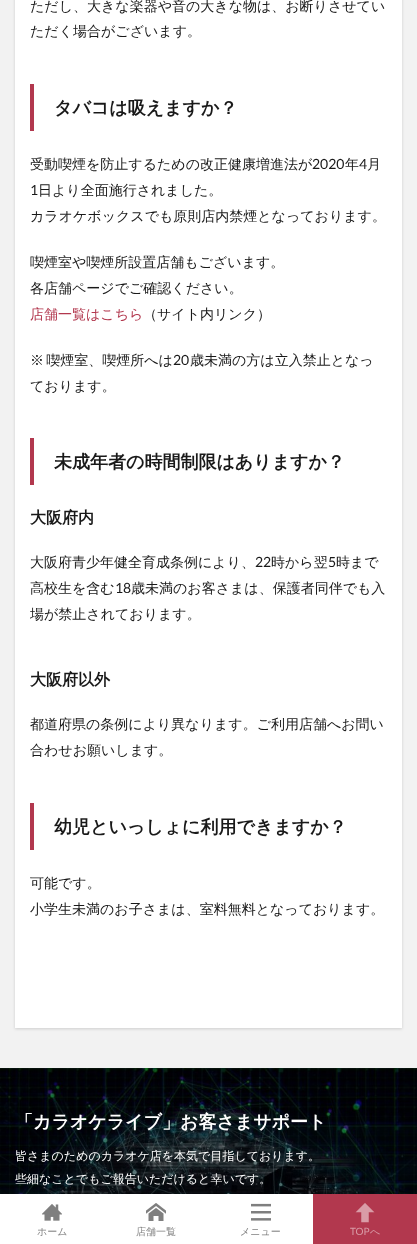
(async () => {
    const canvas = document.querySelector("canvas");
    canvas.width = 417;
    canvas.height = 1244;
    const context = canvas.getContext("2d");
    context.miterLimit = 4;
    context.fontKerning = "normal";
    function write(s, x, y, font, color) {
        context.font = font;
        context.fillStyle = color;
        context.fillText(s, x, y);
    }
    function block(x, y, w, h, color) {
        context.fillStyle = color;
        context.fillRect(x, y, w, h);
    }
    async function photo(src, x, y, w, h) {
        const img = new Image();
        img.src = src;
        await img.decode();
        context.drawImage(img, x, y, w, h);
    }

    block(0, 0, 417, 1244, "rgb(242, 242, 242)");
    context.fillStyle = "rgba(0, 0, 0, 0.15)";
    context.filter = "blur(1.5px)";
    context.beginPath();
    context.rect(15, -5, 387, 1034);
    context.fill();
    context.filter = "none";
    block(15, 0, 387, 1028, "rgb(255, 255, 255)");
    write("ただし、大きな楽器や音の大きな物は、お断りさせてい", 30, 11, "500 14px WenQuanYi Zen Hei", "rgb(25, 25, 25)");
    write("ただく場合がございます。", 30, 36, "500 14px WenQuanYi Zen Hei", "rgb(25, 25, 25)");
    block(30, 84, 4, 47, "rgb(178, 56, 78)");
    write("タバコは吸えますか？", 54, 114, "bold 18px WenQuanYi Zen Hei", "rgb(25, 25, 25)");
    write("受動喫煙を防止するための改正健康増進法が", 30, 169, "500 14px WenQuanYi Zen Hei", "rgb(25, 25, 25)");
    write("2020", 312, 169, "14px Lato", "rgb(25, 25, 25)");
    write("年", 345, 169, "500 14px WenQuanYi Zen Hei", "rgb(25, 25, 25)");
    write("4", 359, 169, "14px Lato", "rgb(25, 25, 25)");
    write("月", 367, 169, "500 14px WenQuanYi Zen Hei", "rgb(25, 25, 25)");
    write("1", 30, 195, "14px Lato", "rgb(25, 25, 25)");
    write("日より全面施行されました。", 38, 195, "500 14px WenQuanYi Zen Hei", "rgb(25, 25, 25)");
    write("カラオケボックスでも原則店内禁煙となっております。", 30, 221, "500 14px WenQuanYi Zen Hei", "rgb(25, 25, 25)");
    write("喫煙室や喫煙所設置店舗もございます。", 30, 267, "500 14px WenQuanYi Zen Hei", "rgb(25, 25, 25)");
    write("各店舗ページでご確認ください。", 30, 293, "500 14px WenQuanYi Zen Hei", "rgb(25, 25, 25)");
    write("店舗一覧はこちら", 30, 319, "500 14px WenQuanYi Zen Hei", "rgb(178, 56, 78)");
    write("（サイト内リンク）", 143, 319, "500 14px WenQuanYi Zen Hei", "rgb(25, 25, 25)");
    context.wordSpacing = "-2px";
    write("※ 喫煙室、喫煙所へは", 30, 365, "500 14px WenQuanYi Zen Hei", "rgb(25, 25, 25)");
    context.wordSpacing = "0px";
    write("20", 173, 365, "14px Lato", "rgb(25, 25, 25)");
    write("歳未満の方は立入禁止となっ", 190, 365, "500 14px WenQuanYi Zen Hei", "rgb(25, 25, 25)");
    write("ております。", 30, 391, "500 14px WenQuanYi Zen Hei", "rgb(25, 25, 25)");
    block(30, 438, 4, 47, "rgb(178, 56, 78)");
    write("未成年者の時間制限はありますか？", 54, 468, "bold 18px WenQuanYi Zen Hei", "rgb(25, 25, 25)");
    write("大阪府内", 30, 523, "bold 16px WenQuanYi Zen Hei", "rgb(25, 25, 25)");
    write("大阪府青少年健全育成条例により、", 30, 567, "500 14px WenQuanYi Zen Hei", "rgb(25, 25, 25)");
    write("22", 255, 567, "14px Lato", "rgb(25, 25, 25)");
    write("時から翌", 271, 567, "500 14px WenQuanYi Zen Hei", "rgb(25, 25, 25)");
    write("5", 328, 567, "14px Lato", "rgb(25, 25, 25)");
    write("時まで", 336, 567, "500 14px WenQuanYi Zen Hei", "rgb(25, 25, 25)");
    write("高校生を含む", 30, 593, "500 14px WenQuanYi Zen Hei", "rgb(25, 25, 25)");
    write("18", 115, 593, "14px Lato", "rgb(25, 25, 25)");
    write("歳未満のお客さまは、保護者同伴でも入", 131, 593, "500 14px WenQuanYi Zen Hei", "rgb(25, 25, 25)");
    write("場が禁止されております。", 30, 619, "500 14px WenQuanYi Zen Hei", "rgb(25, 25, 25)");
    write("大阪府以外", 30, 685, "bold 16px WenQuanYi Zen Hei", "rgb(25, 25, 25)");
    write("都道府県の条例により異なります。ご利用店舗へお問い", 30, 729, "500 14px WenQuanYi Zen Hei", "rgb(25, 25, 25)");
    write("合わせお願いします。", 30, 755, "500 14px WenQuanYi Zen Hei", "rgb(25, 25, 25)");
    block(30, 803, 4, 47, "rgb(178, 56, 78)");
    write("幼児といっしょに利用できますか？", 54, 833, "bold 18px WenQuanYi Zen Hei", "rgb(25, 25, 25)");
    write("可能です。", 30, 888, "500 14px WenQuanYi Zen Hei", "rgb(25, 25, 25)");
    write("小学生未満のお子さまは、室料無料となっております。", 30, 914, "500 14px WenQuanYi Zen Hei", "rgb(25, 25, 25)");
    await photo("media/1.png", 0, 1068, 417, 126);
    write("「カラオケライブ」お客さまサポート", 15, 1128, "bold 18px WenQuanYi Zen Hei", "rgb(255, 255, 255)");
    write("皆さまのためのカラオケ店を本気で目指しております。", 15, 1160, "500 12px WenQuanYi Zen Hei", "rgb(255, 255, 255)");
    write("些細なことでもご報告いただけると幸いです。", 15, 1183, "500 12px WenQuanYi Zen Hei", "rgb(255, 255, 255)");
    block(0, 1194, 313, 50, "rgb(255, 255, 255)");
    await photo("media/2.png", 42, 1204, 20, 17);
    write("ホーム", 37, 1235, "500 10px WenQuanYi Zen Hei", "rgb(128, 128, 128)");
    await photo("media/3.png", 146, 1203, 20, 18);
    write("店舗一覧", 136, 1235, "500 10px WenQuanYi Zen Hei", "rgb(128, 128, 128)");
    await photo("media/4.png", 251, 1203, 20, 18);
    write("メニュー", 240, 1235, "500 10px WenQuanYi Zen Hei", "rgb(128, 128, 128)");
    block(313, 1194, 104, 50, "rgb(178, 56, 78)");
    await photo("media/5.png", 355, 1203, 20, 20);
    write("TOP", 350, 1235, "10px Lato", "rgb(217, 156, 167)");
    write("へ", 370, 1235, "500 10px WenQuanYi Zen Hei", "rgb(217, 156, 167)");
})();
